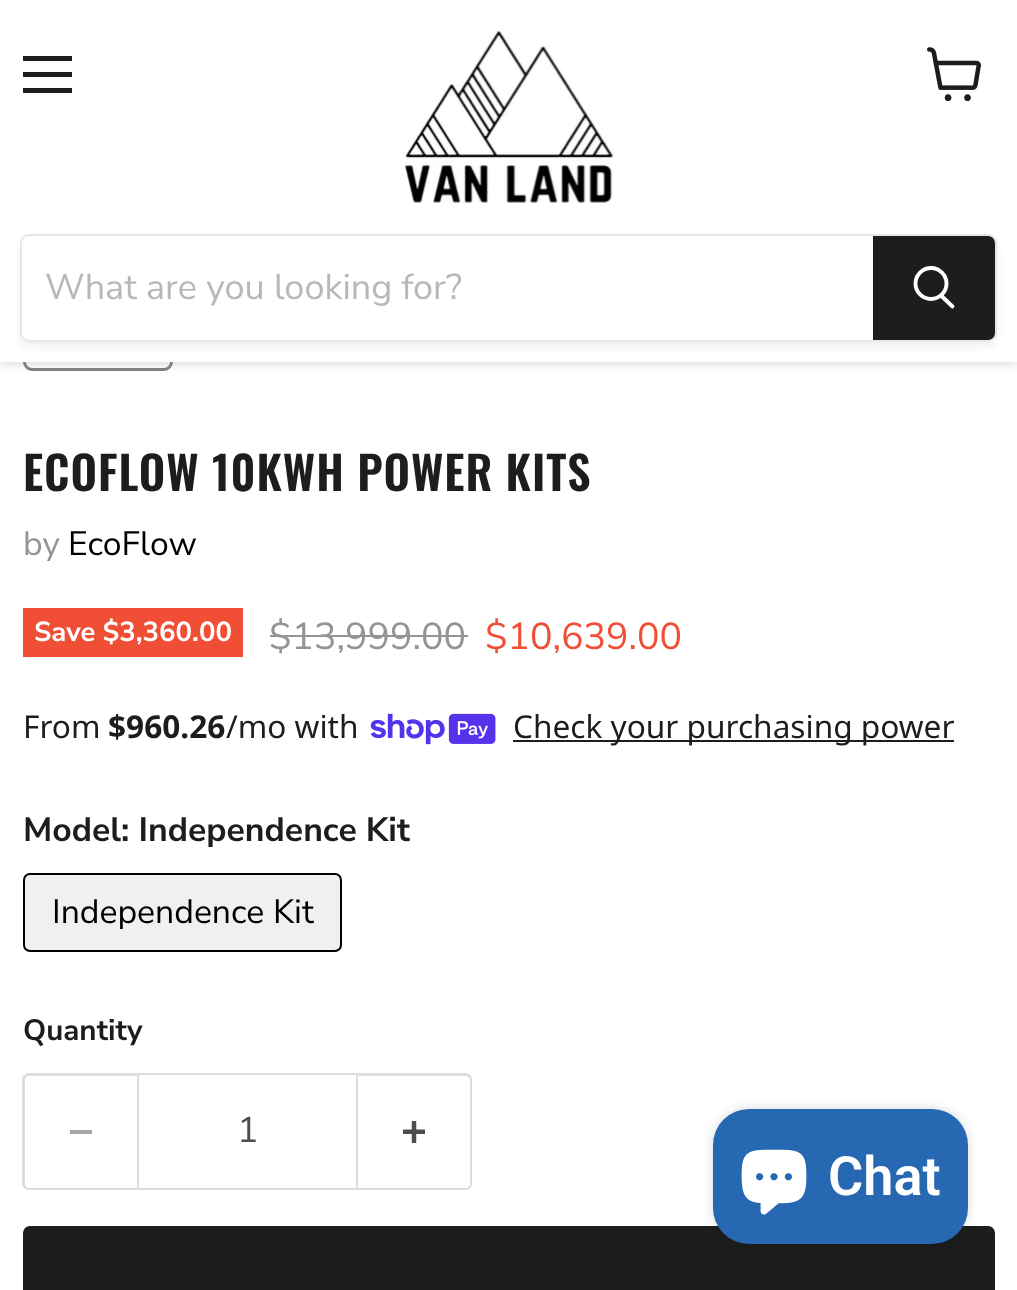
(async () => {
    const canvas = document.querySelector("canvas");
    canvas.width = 1017;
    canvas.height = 1290;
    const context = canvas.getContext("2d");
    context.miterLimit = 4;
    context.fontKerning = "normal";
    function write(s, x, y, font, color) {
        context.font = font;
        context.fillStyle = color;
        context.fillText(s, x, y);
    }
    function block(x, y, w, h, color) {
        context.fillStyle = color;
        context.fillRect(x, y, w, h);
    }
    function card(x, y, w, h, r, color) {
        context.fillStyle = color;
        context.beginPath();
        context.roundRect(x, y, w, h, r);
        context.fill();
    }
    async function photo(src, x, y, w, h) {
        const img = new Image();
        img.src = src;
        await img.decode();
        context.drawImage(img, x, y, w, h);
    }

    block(0, 0, 1017, 1290, "rgb(255, 255, 255)");
    context.beginPath();
    context.roundRect(24.5, 222.5, 147, 147, 7.5);
    context.strokeStyle = "rgb(129, 129, 129)";
    context.lineWidth = 3;
    context.stroke();
    context.fillStyle = "rgba(128, 128, 128, 0.25)";
    context.filter = "blur(4.5px)";
    context.beginPath();
    context.rect(0, 2, 1017, 363);
    context.fill();
    context.filter = "none";
    block(0, 0, 1017, 362, "rgb(255, 255, 255)");
    block(23, 56, 49, 5, "rgb(29, 29, 29)");
    block(23, 72, 49, 5, "rgb(29, 29, 29)");
    block(23, 88, 49, 5, "rgb(29, 29, 29)");
    await photo("media/1.png", 927, 47, 54, 54);
    await photo("media/2.png", 405, 31, 209, 172);
    context.save();
    context.beginPath();
    context.moveTo(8, 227);
    context.lineTo(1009, 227);
    context.lineTo(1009, 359);
    context.lineTo(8, 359);
    context.closePath();
    context.moveTo(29, 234);
    context.lineTo(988, 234);
    context.bezierCurveTo(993, 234, 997, 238, 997, 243);
    context.lineTo(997, 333);
    context.bezierCurveTo(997, 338, 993, 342, 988, 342);
    context.lineTo(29, 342);
    context.bezierCurveTo(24, 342, 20, 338, 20, 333);
    context.lineTo(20, 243);
    context.bezierCurveTo(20, 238, 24, 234, 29, 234);
    context.closePath();
    context.clip("evenodd");
    context.fillStyle = "rgba(128, 128, 128, 0.11)";
    context.filter = "blur(3.5px)";
    context.beginPath();
    context.roundRect(20, 239, 977, 108, 9);
    context.fill();
    context.filter = "none";
    context.restore();
    context.beginPath();
    context.roundRect(21, 235, 975, 106, 8);
    context.strokeStyle = "rgba(128, 128, 128, 0.2)";
    context.lineWidth = 2;
    context.stroke();
    write("What are you looking for?", 45, 299, "36px Nunito Sans", "rgb(184, 184, 184)");
    context.fillStyle = "rgb(29, 29, 29)";
    context.beginPath();
    context.roundRect(874, 237, 120, 102, [0, 6, 6, 0]);
    context.fill();
    context.strokeStyle = "rgb(29, 29, 29)";
    context.stroke();
    context.beginPath();
    context.moveTo(952.5, 306.5);
    context.lineTo(941.5, 296);
    context.strokeStyle = "rgb(255, 255, 255)";
    context.lineWidth = 3.9;
    context.lineCap = "round";
    context.stroke();
    context.beginPath();
    context.arc(931, 283.5, 15.5, 0, Math.PI * 2);
    context.stroke();
    context.letterSpacing = "0.9px";
    write("ECOFLOW 10KWH POWER KITS", 23, 491, "600 46.1px Oswald", "rgb(29, 29, 29)");
    context.letterSpacing = "0px";
    write("by", 23, 555, "33.75px Nunito Sans", "rgb(148, 148, 148)");
    write("EcoFlow", 68, 555, "33.75px Nunito Sans", "rgb(0, 0, 0)");
    block(23, 608, 220, 49, "rgb(240, 79, 54)");
    write("Save $3,360.00", 34, 641, "bold 27.5px Nunito Sans", "rgb(255, 255, 255)");
    write("$13,999.00", 269, 649, "37.5px Nunito Sans", "rgb(148, 148, 148)");
    block(270, 635, 198, 2, "rgb(148, 148, 148)");
    write("$10,639.00", 485, 649, "37.5px Nunito Sans", "rgb(240, 79, 54)");
    write("From", 23, 738, "31.6px Noto Sans", "rgb(29, 29, 29)");
    write("$960.26", 108, 738, "bold 31.6px Noto Sans", "rgb(29, 29, 29)");
    write("/mo with", 226, 738, "31.6px Noto Sans", "rgb(29, 29, 29)");
    await photo("media/3.png", 370, 713, 126, 32);
    block(513, 740, 441, 2, "rgb(29, 29, 29)");
    write("Check your purchasing power", 513, 738, "31.6px Noto Sans", "rgb(29, 29, 29)");
    write("Model: Independence Kit", 23, 841, "bold 33.75px Nunito Sans", "rgb(29, 29, 29)");
    context.fillStyle = "rgb(240, 240, 240)";
    context.beginPath();
    context.roundRect(24, 874, 317, 77, 6);
    context.fill();
    context.strokeStyle = "rgb(0, 0, 0)";
    context.lineWidth = 2;
    context.stroke();
    write("Independence Kit", 52, 923, "33.75px Nunito Sans", "rgb(0, 0, 0)");
    write("Quantity", 23, 1040, "bold 29.5px Nunito Sans", "rgb(29, 29, 29)");
    context.fillStyle = "rgb(221, 221, 221)";
    context.beginPath();
    context.moveTo(29, 1073);
    context.lineTo(137, 1073);
    context.lineTo(137, 1190);
    context.lineTo(29, 1190);
    context.bezierCurveTo(26, 1190, 22, 1187, 22, 1184);
    context.lineTo(22, 1080);
    context.bezierCurveTo(22, 1076, 26, 1073, 29, 1073);
    context.closePath();
    context.moveTo(29, 1076);
    context.lineTo(137, 1076);
    context.lineTo(137, 1188);
    context.lineTo(29, 1188);
    context.bezierCurveTo(27, 1188, 25, 1186, 25, 1184);
    context.lineTo(25, 1080);
    context.bezierCurveTo(25, 1078, 27, 1076, 29, 1076);
    context.closePath();
    context.fill("evenodd");
    block(70, 1130, 22, 4, "rgb(166, 166, 166)");
    context.strokeStyle = "rgb(221, 221, 221)";
    context.strokeRect(138, 1074, 219, 115);
    write("1", 237, 1142, "36px Nunito Sans", "rgb(77, 77, 77)");
    context.fillStyle = "rgb(221, 221, 221)";
    context.beginPath();
    context.moveTo(358, 1073);
    context.lineTo(466, 1073);
    context.bezierCurveTo(469, 1073, 472, 1076, 472, 1080);
    context.lineTo(472, 1184);
    context.bezierCurveTo(472, 1187, 469, 1190, 466, 1190);
    context.lineTo(358, 1190);
    context.closePath();
    context.moveTo(358, 1076);
    context.lineTo(466, 1076);
    context.bezierCurveTo(468, 1076, 470, 1078, 470, 1080);
    context.lineTo(470, 1184);
    context.bezierCurveTo(470, 1186, 468, 1188, 466, 1188);
    context.lineTo(358, 1188);
    context.closePath();
    context.fill("evenodd");
    await photo("media/4.png", 403, 1121, 22, 22);
    context.fillStyle = "rgb(29, 29, 29)";
    context.beginPath();
    context.roundRect(24, 1227, 970, 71, 6);
    context.fill();
    context.strokeStyle = "rgb(29, 29, 29)";
    context.stroke();
    context.fillStyle = "rgba(0, 0, 0, 0.15)";
    context.filter = "blur(5.5px)";
    context.beginPath();
    context.roundRect(713, 1109, 255, 135, 36);
    context.fill();
    context.filter = "none";
    card(713, 1109, 255, 135, 36, "rgb(39, 104, 179)");
    await photo("media/5.png", 741, 1149, 66, 66);
    write("Chat", 828, 1195, "600 54px Roboto", "rgb(255, 255, 255)");
})();
